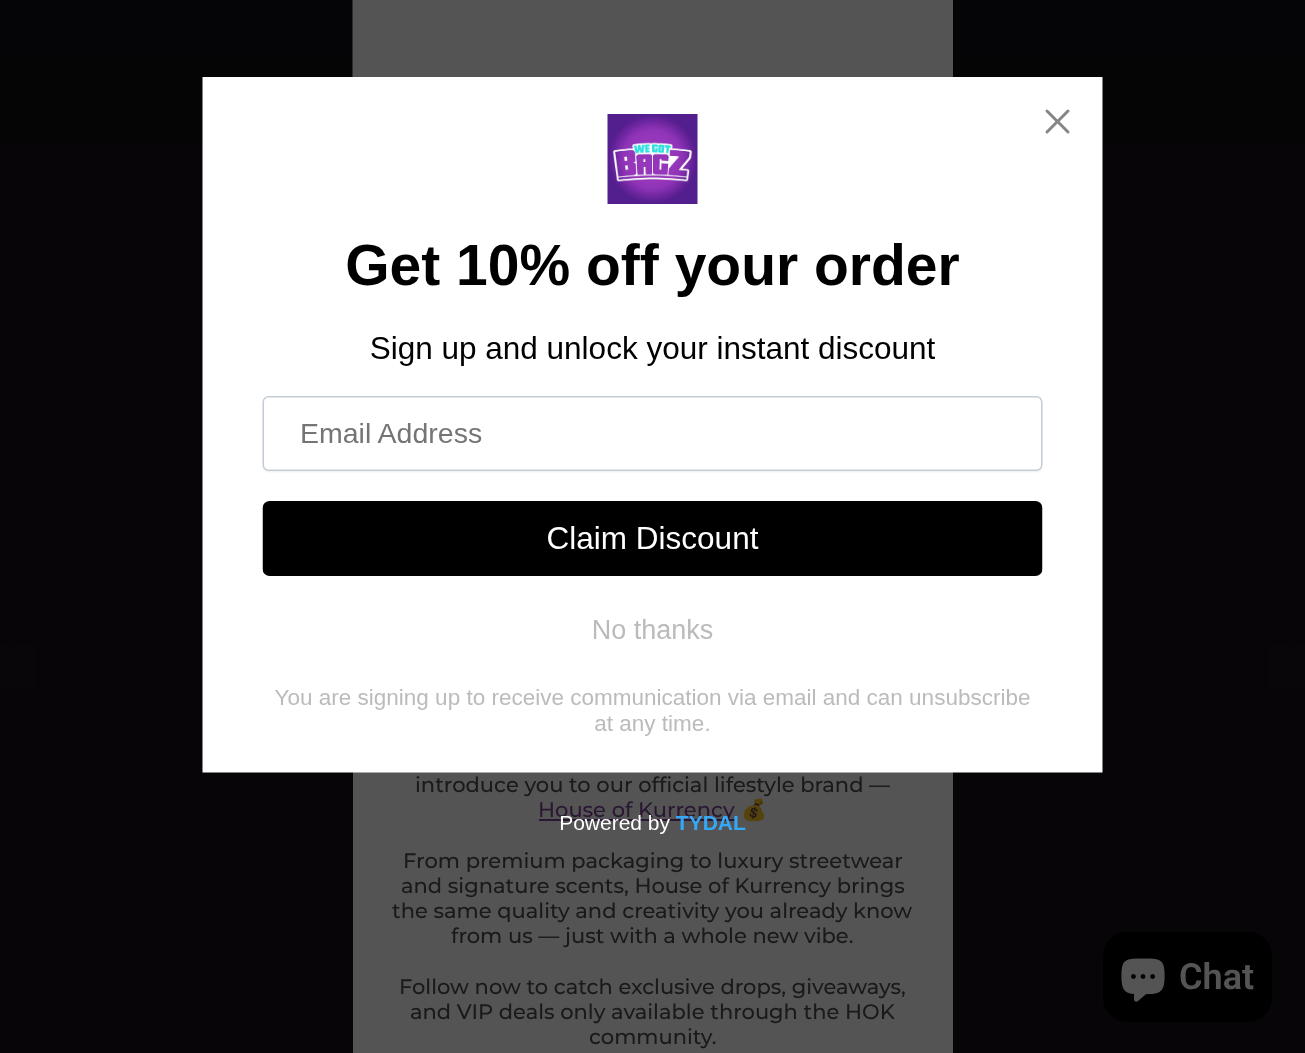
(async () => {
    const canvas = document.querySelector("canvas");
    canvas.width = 1305;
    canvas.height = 1053;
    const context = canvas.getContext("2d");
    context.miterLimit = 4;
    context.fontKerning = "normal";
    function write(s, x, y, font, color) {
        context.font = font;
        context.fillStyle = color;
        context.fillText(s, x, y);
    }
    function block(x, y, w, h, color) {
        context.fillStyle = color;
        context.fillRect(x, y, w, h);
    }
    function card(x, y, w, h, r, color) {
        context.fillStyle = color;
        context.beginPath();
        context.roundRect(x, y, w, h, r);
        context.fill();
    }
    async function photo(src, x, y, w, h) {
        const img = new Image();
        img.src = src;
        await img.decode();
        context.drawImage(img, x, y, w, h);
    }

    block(0, 0, 1305, 1053, "rgb(23, 17, 25)");
    block(0, 0, 1305, 59, "rgb(18, 14, 20)");
    block(0, 59, 1305, 84, "rgb(16, 16, 16)");
    block(0, 645, 36, 45, "rgb(25, 21, 28)");
    context.fillStyle = "rgba(15, 15, 15, 0.3)";
    context.beginPath();
    context.moveTo(9.5, 645);
    context.lineTo(20.5, 656);
    context.lineTo(22.5, 653.5);
    context.lineTo(14, 645);
    context.lineTo(22.5, 636.5);
    context.lineTo(20.5, 634);
    context.closePath();
    context.fill();
    block(1269, 645, 36, 45, "rgb(25, 21, 28)");
    context.fillStyle = "rgba(15, 15, 15, 0.3)";
    context.beginPath();
    context.moveTo(1296, 645);
    context.lineTo(1285, 634);
    context.lineTo(1283, 636.5);
    context.lineTo(1291.5, 645);
    context.lineTo(1283, 653.5);
    context.lineTo(1285, 656);
    context.closePath();
    context.fill();
    block(11, 635, 1284, 10, "rgb(23, 17, 25)");
    block(353, 0, 600, 1053, "rgb(255, 255, 255)");
    await photo("media/2.png", 352, 0, 569, 77);
    write("introduce you to our official lifestyle brand —", 415, 792, "500 21px Montserrat", "rgb(79, 79, 79)");
    block(539, 819, 196, 2, "rgb(128, 72, 155)");
    write("House of Kurrency", 538, 817, "500 21px Montserrat", "rgb(128, 72, 155)");
    write("💰", 741, 817, "21px Noto Color Emoji", "rgb(79, 79, 79)");
    write("From premium packaging to luxury streetwear", 403, 868, "500 21px Montserrat", "rgb(79, 79, 79)");
    write("and signature scents, House of Kurrency brings", 401, 893, "500 21px Montserrat", "rgb(79, 79, 79)");
    write("the same quality and creativity you already know", 392, 918, "500 21px Montserrat", "rgb(79, 79, 79)");
    write("from us — just with a whole new vibe.", 451, 943, "500 21px Montserrat", "rgb(79, 79, 79)");
    write("Follow now to catch exclusive drops, giveaways,", 399, 994, "500 21px Montserrat", "rgb(79, 79, 79)");
    write("and VIP deals only available through the HOK", 410, 1019, "500 21px Montserrat", "rgb(79, 79, 79)");
    write("community.", 589, 1044, "500 21px Montserrat", "rgb(79, 79, 79)");
    card(1103, 932, 169, 90, 24, "rgb(0, 0, 0)");
    await photo("media/3.png", 1121, 958, 44, 44);
    write("Chat", 1179, 989, "600 36px Roboto", "rgb(255, 255, 255)");
    await photo("media/1.png", 0, 0, 1305, 1053);
})();
